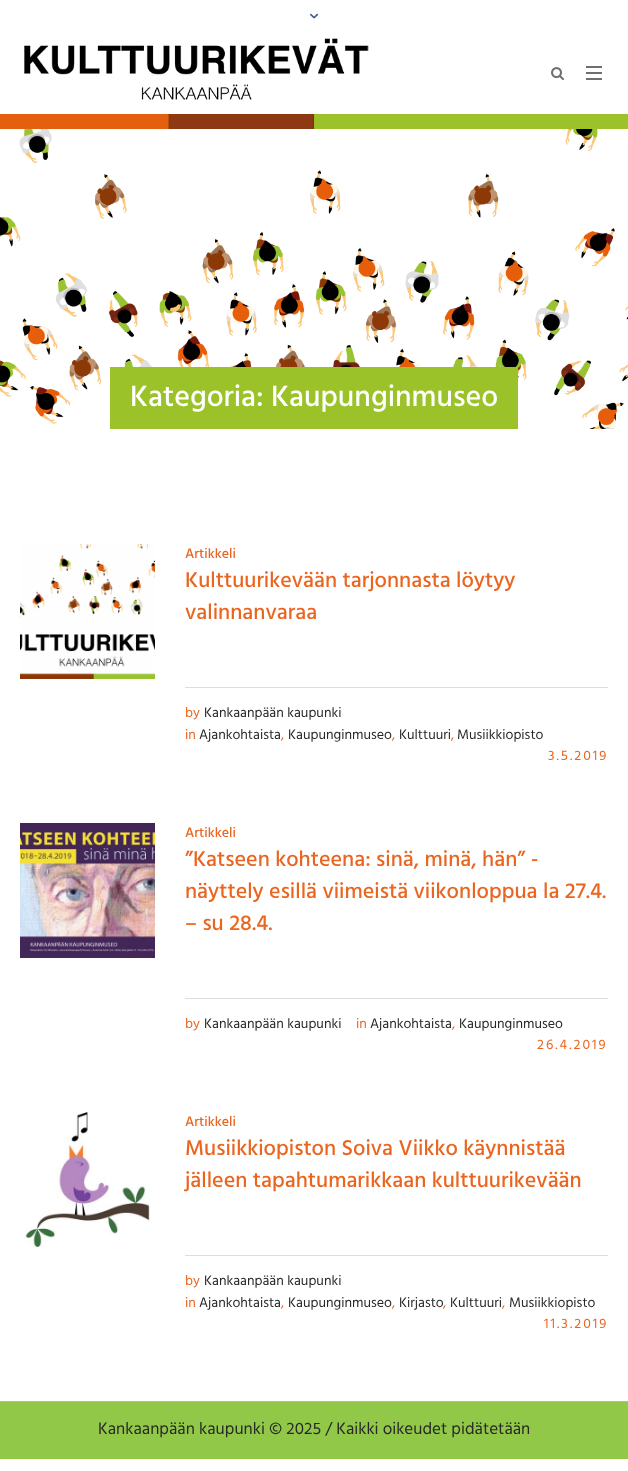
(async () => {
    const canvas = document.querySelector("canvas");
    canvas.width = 628;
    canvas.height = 1471;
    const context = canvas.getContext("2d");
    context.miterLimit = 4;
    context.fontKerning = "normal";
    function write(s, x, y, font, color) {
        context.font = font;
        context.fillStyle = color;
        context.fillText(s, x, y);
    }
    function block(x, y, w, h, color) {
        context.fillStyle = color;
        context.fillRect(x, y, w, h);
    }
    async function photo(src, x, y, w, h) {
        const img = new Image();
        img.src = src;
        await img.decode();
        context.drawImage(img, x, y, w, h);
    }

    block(0, 0, 628, 1471, "rgb(255, 255, 255)");
    await photo("media/1.png", 310, 13, 9, 6);
    await photo("media/2.png", 24, 38, 345, 62);
    await photo("media/3.png", 551, 67, 13, 13);
    block(586, 72, 16, 2, "rgb(111, 111, 111)");
    block(586, 66, 16, 2, "rgb(111, 111, 111)");
    block(586, 78, 16, 2, "rgb(111, 111, 111)");
    block(315, 114, 313, 15, "rgb(156, 194, 41)");
    await photo("media/4.png", 0, 114, 315, 15);
    await photo("media/5.png", 0, 129, 628, 300);
    block(110, 367, 408, 62, "rgb(156, 194, 41)");
    write("Kategoria: Kaupunginmuseo", 130, 406, "500 30px Hind", "rgb(255, 255, 255)");
    await photo("media/6.png", 20, 544, 135, 135);
    write("Artikkeli", 185, 558, "500 14px Hind", "rgb(234, 102, 32)");
    write("Kulttuurikevään tarjonnasta löytyy", 185, 587, "500 22px Hind", "rgb(234, 102, 32)");
    write("valinnanvaraa", 185, 619, "500 22px Hind", "rgb(234, 102, 32)");
    block(185, 687, 423, 1, "rgb(222, 222, 222)");
    write("by", 185, 717, "14px Hind", "rgb(234, 102, 32)");
    write("Kankaanpään kaupunki", 204, 717, "14px Hind", "rgb(40, 40, 40)");
    write("in", 185, 739, "14px Hind", "rgb(234, 102, 32)");
    write("Ajankohtaista", 199, 739, "14px Hind", "rgb(40, 40, 40)");
    write(",", 281, 739, "14px Hind", "rgb(234, 102, 32)");
    write("Kaupunginmuseo", 288, 739, "14px Hind", "rgb(40, 40, 40)");
    write(",", 392, 739, "14px Hind", "rgb(234, 102, 32)");
    write("Kulttuuri", 399, 739, "14px Hind", "rgb(40, 40, 40)");
    write(",", 451, 739, "14px Hind", "rgb(234, 102, 32)");
    write("Musiikkiopisto", 457, 739, "14px Hind", "rgb(40, 40, 40)");
    context.letterSpacing = "2px";
    write("3.5.2019", 548, 760, "14px Hind", "rgb(234, 102, 32)");
    await photo("media/7.png", 20, 823, 135, 135);
    context.letterSpacing = "0px";
    write("Artikkeli", 185, 837, "500 14px Hind", "rgb(234, 102, 32)");
    write("”Katseen kohteena: sinä, minä, hän” -", 185, 866, "500 22px Hind", "rgb(234, 102, 32)");
    write("näyttely esillä viimeistä viikonloppua la 27.4.", 185, 898, "500 22px Hind", "rgb(234, 102, 32)");
    write("– su 28.4.", 185, 930, "500 22px Hind", "rgb(234, 102, 32)");
    block(185, 998, 423, 1, "rgb(222, 222, 222)");
    write("by", 185, 1028, "14px Hind", "rgb(234, 102, 32)");
    write("Kankaanpään kaupunki", 204, 1028, "14px Hind", "rgb(40, 40, 40)");
    write("in", 356, 1028, "14px Hind", "rgb(234, 102, 32)");
    write("Ajankohtaista", 370, 1028, "14px Hind", "rgb(40, 40, 40)");
    write(",", 452, 1028, "14px Hind", "rgb(234, 102, 32)");
    write("Kaupunginmuseo", 459, 1028, "14px Hind", "rgb(40, 40, 40)");
    context.letterSpacing = "2px";
    write("26.4.2019", 537, 1049, "14px Hind", "rgb(234, 102, 32)");
    await photo("media/8.png", 24, 1112, 126, 135);
    context.letterSpacing = "0px";
    write("Artikkeli", 185, 1126, "500 14px Hind", "rgb(234, 102, 32)");
    write("Musiikkiopiston Soiva Viikko käynnistää", 185, 1155, "500 22px Hind", "rgb(234, 102, 32)");
    write("jälleen tapahtumarikkaan kulttuurikevään", 185, 1187, "500 22px Hind", "rgb(234, 102, 32)");
    block(185, 1255, 423, 1, "rgb(222, 222, 222)");
    write("by", 185, 1285, "14px Hind", "rgb(234, 102, 32)");
    write("Kankaanpään kaupunki", 204, 1285, "14px Hind", "rgb(40, 40, 40)");
    write("in", 185, 1307, "14px Hind", "rgb(234, 102, 32)");
    write("Ajankohtaista", 199, 1307, "14px Hind", "rgb(40, 40, 40)");
    write(",", 281, 1307, "14px Hind", "rgb(234, 102, 32)");
    write("Kaupunginmuseo", 288, 1307, "14px Hind", "rgb(40, 40, 40)");
    write(",", 392, 1307, "14px Hind", "rgb(234, 102, 32)");
    write("Kirjasto", 399, 1307, "14px Hind", "rgb(40, 40, 40)");
    write(",", 443, 1307, "14px Hind", "rgb(234, 102, 32)");
    write("Kulttuuri", 450, 1307, "14px Hind", "rgb(40, 40, 40)");
    write(",", 502, 1307, "14px Hind", "rgb(234, 102, 32)");
    write("Musiikkiopisto", 509, 1307, "14px Hind", "rgb(40, 40, 40)");
    context.letterSpacing = "2px";
    write("11.3.2019", 544, 1328, "14px Hind", "rgb(234, 102, 32)");
    block(0, 1402, 628, 57, "rgb(145, 200, 72)");
    block(0, 1401, 628, 1, "rgb(160, 204, 103)");
    context.letterSpacing = "0px";
    write("Kankaanpään kaupunki © 2025 / Kaikki oikeudet pidätetään", 98, 1434, "17px Hind", "rgb(40, 40, 40)");
})();
